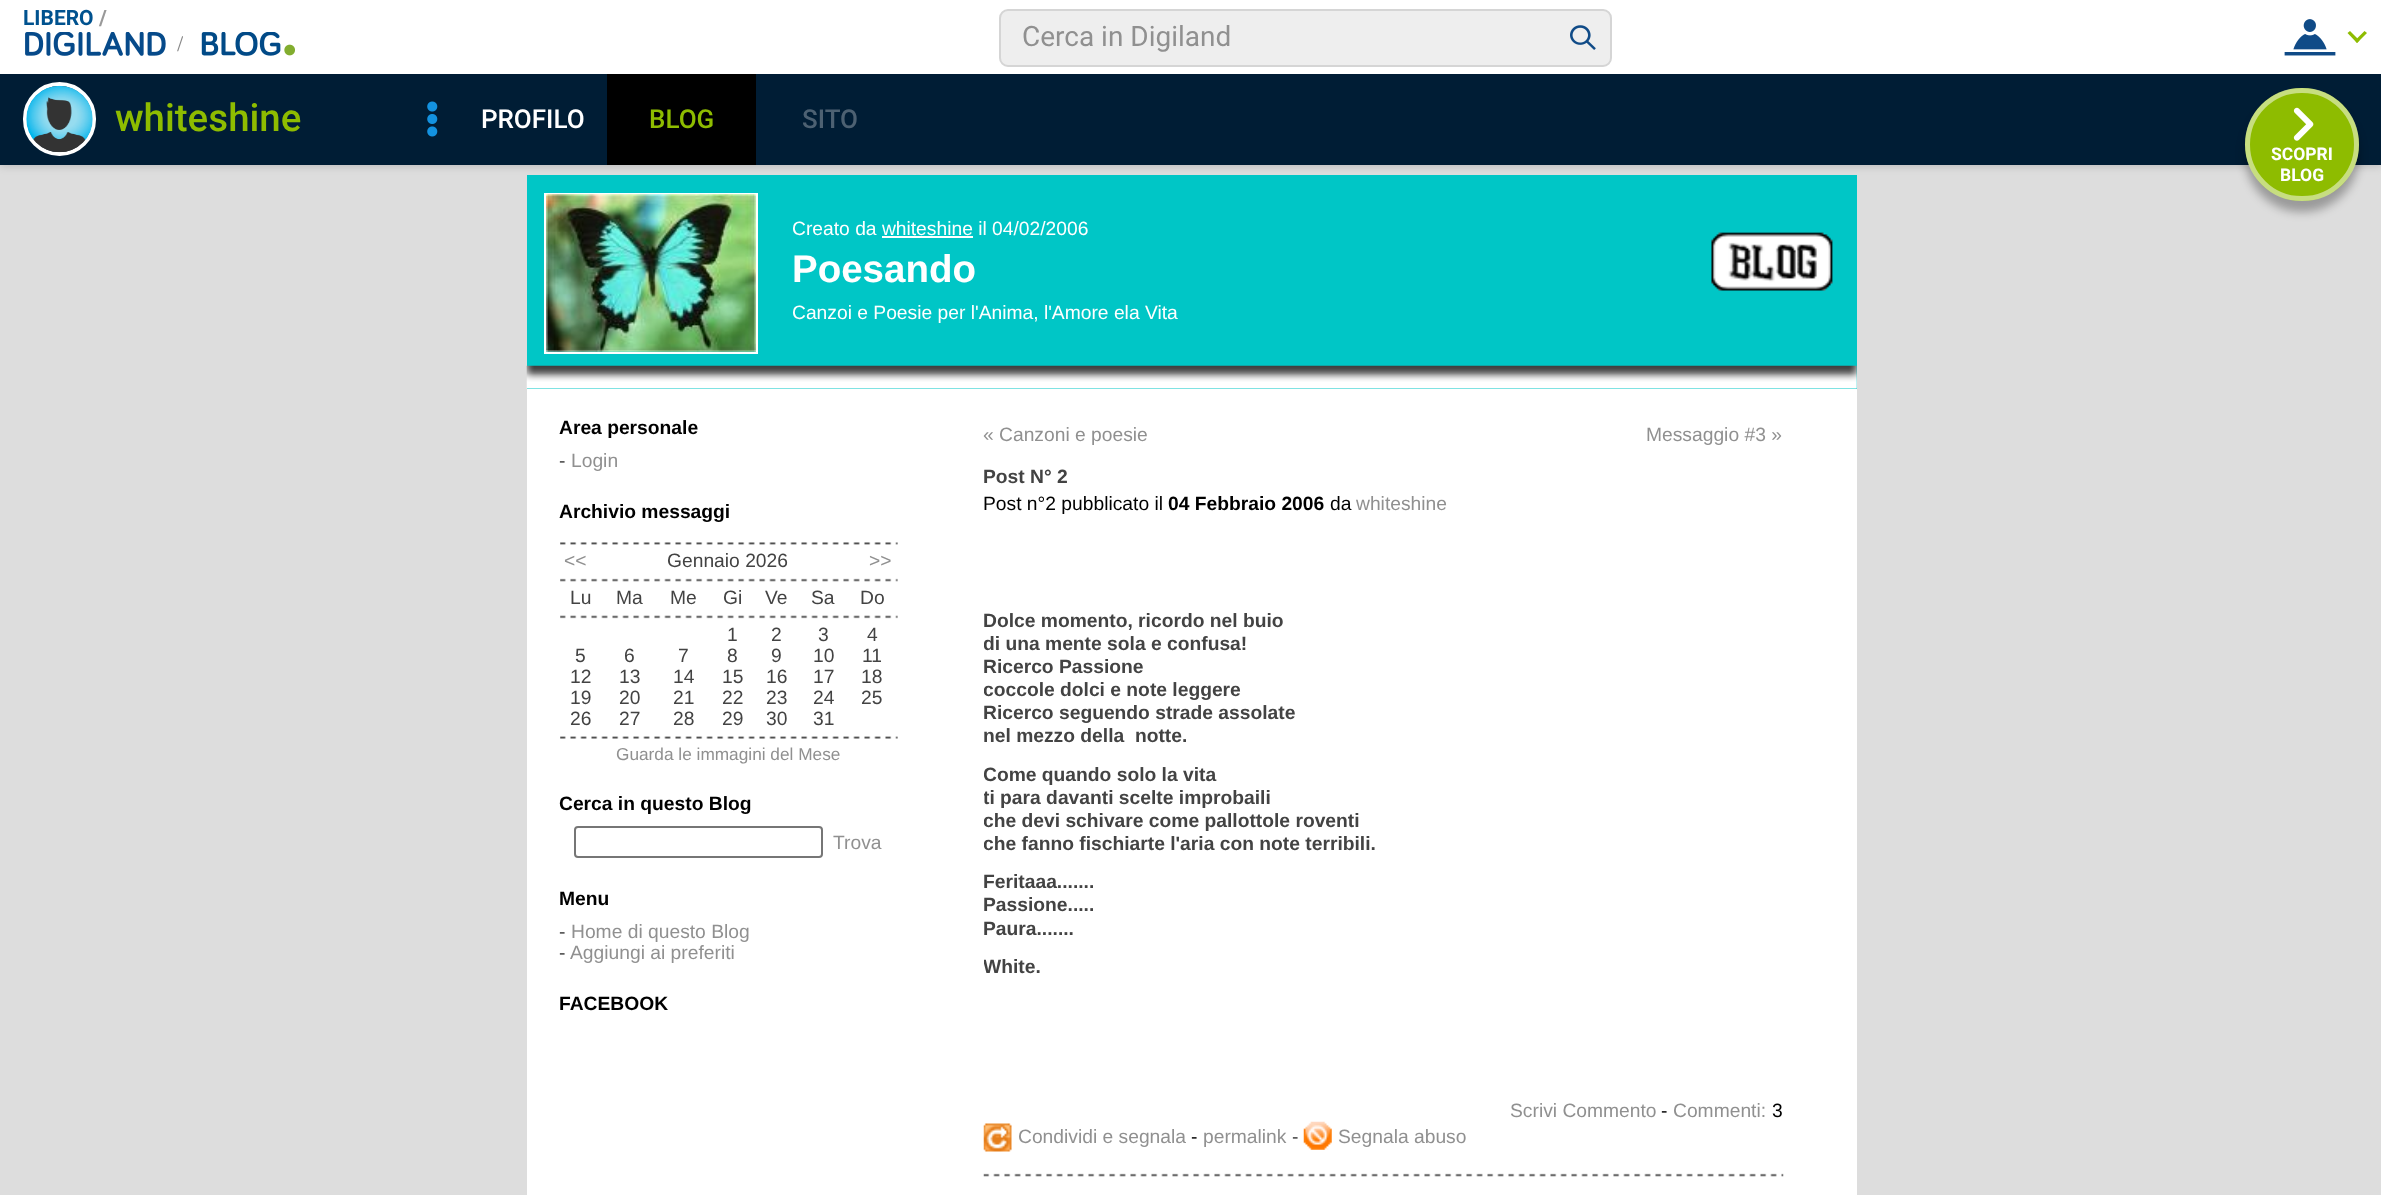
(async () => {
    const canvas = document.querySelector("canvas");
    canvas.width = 2381;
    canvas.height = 1195;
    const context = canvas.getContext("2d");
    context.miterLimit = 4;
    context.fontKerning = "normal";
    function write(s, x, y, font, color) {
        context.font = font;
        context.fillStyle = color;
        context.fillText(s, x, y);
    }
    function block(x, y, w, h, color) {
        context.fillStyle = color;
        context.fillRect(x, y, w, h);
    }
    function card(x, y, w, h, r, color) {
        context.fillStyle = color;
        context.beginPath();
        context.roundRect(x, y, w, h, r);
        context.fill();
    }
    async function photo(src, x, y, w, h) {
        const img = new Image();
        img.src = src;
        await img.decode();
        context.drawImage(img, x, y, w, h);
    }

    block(0, 0, 2381, 1195, "rgb(221, 221, 221)");
    block(527, 175, 1330, 214, "rgb(0, 198, 198)");
    context.fillStyle = "rgba(0, 0, 0, 0.2)";
    context.filter = "blur(5px)";
    context.beginPath();
    context.rect(0, 0, 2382, 165);
    context.fill();
    context.filter = "none";
    block(0, 0, 2381, 74, "rgb(255, 255, 255)");
    write("LIBERO", 23, 25, "bold 21px Roboto", "rgb(0, 82, 143)");
    write("/", 99, 25, "bold 21px Roboto", "rgb(153, 153, 153)");
    context.fillStyle = "rgb(238, 238, 238)";
    context.beginPath();
    context.roundRect(1000, 10, 611, 56, 8);
    context.fill();
    context.strokeStyle = "rgb(213, 213, 213)";
    context.lineWidth = 2;
    context.stroke();
    write("Cerca in Digiland", 1022, 46, "28px Roboto", "rgb(144, 144, 144)");
    await photo("media/1.png", 1570, 25, 26, 25);
    await photo("media/2.png", 2284, 19, 52, 37);
    context.fillStyle = "rgb(142, 188, 0)";
    context.beginPath();
    context.moveTo(2364.5, 31);
    context.lineTo(2367, 33);
    context.lineTo(2357, 43);
    context.lineTo(2355, 40.5);
    context.closePath();
    context.fill();
    context.beginPath();
    context.moveTo(2350, 31);
    context.lineTo(2359.5, 40.5);
    context.lineTo(2357, 43);
    context.lineTo(2347.5, 33);
    context.closePath();
    context.fill();
    await photo("media/3.png", 25, 32, 141, 24);
    await photo("media/4.png", 177, 36, 6, 16);
    await photo("media/5.png", 201, 32, 94, 24);
    block(0, 74, 2381, 91, "rgb(0, 29, 53)");
    context.beginPath();
    context.roundRect(25, 84, 69, 70, 34.5);
    context.strokeStyle = "rgb(255, 255, 255)";
    context.lineWidth = 4;
    context.stroke();
    await photo("media/6.png", 26, 85, 67, 68);
    write("whiteshine", 115, 131, "500 38.5px Roboto", "rgb(142, 188, 0)");
    await photo("media/7.png", 427, 101, 11, 36);
    write("PROFILO", 481, 128, "500 26px Roboto", "rgb(255, 255, 255)");
    block(607, 74, 149, 91, "rgb(0, 0, 0)");
    write("BLOG", 649, 128, "500 26px Roboto", "rgb(142, 188, 0)");
    write("SITO", 802, 128, "500 26px Roboto", "rgb(77, 97, 114)");
    context.fillStyle = "rgba(0, 0, 0, 0.3)";
    context.filter = "blur(5px)";
    context.beginPath();
    context.roundRect(2245, 98, 114, 114, 57);
    context.fill();
    context.filter = "none";
    card(2245, 88, 114, 113, 56.5, "rgb(142, 188, 0)");
    context.beginPath();
    context.roundRect(2247.5, 90.5, 109, 108, 54);
    context.strokeStyle = "rgba(255, 255, 255, 0.5)";
    context.lineWidth = 5;
    context.stroke();
    await photo("media/8.png", 2293, 107, 21, 34);
    write("SCOPRI", 2271, 160, "bold 17.5px Roboto", "rgb(255, 255, 255)");
    write("BLOG", 2280, 181, "bold 17.5px Roboto", "rgb(255, 255, 255)");
    block(527, 389, 1330, 806, "rgb(255, 255, 255)");
    await photo("media/9.png", 526, 365, 1331, 24);
    context.strokeStyle = "rgb(255, 255, 255)";
    context.lineWidth = 2;
    context.strokeRect(545, 194, 212, 159);
    await photo("media/10.png", 546, 194, 210, 158);
    write("Creato da whiteshine il 04/02/2006", 792, 235, "19.25px Liberation Sans", "rgb(255, 255, 255)");
    block(882, 236, 91, 2, "rgb(255, 255, 255)");
    write("Poesando", 792, 282, "bold 38.5px Liberation Sans", "rgb(255, 255, 255)");
    write("Canzoi e Poesie per l'Anima, l'Amore ela Vita", 792, 319, "19.25px Liberation Sans", "rgb(255, 255, 255)");
    await photo("media/11.png", 1711, 232, 122, 59);
    write("Area personale", 559, 434, "bold 19.25px Liberation Sans", "rgb(0, 0, 0)");
    write("-", 559, 467, "19.25px Liberation Sans", "rgb(67, 67, 67)");
    write("Login", 571, 467, "19.25px Liberation Sans", "rgb(144, 144, 144)");
    write("Archivio messaggi", 559, 518, "bold 19.25px Liberation Sans", "rgb(0, 0, 0)");
    await photo("media/12.png", 560, 542, 338, 3);
    write("<<", 564, 567, "19.25px Liberation Sans", "rgb(144, 144, 144)");
    write("Gennaio 2026", 667, 567, "19.25px Liberation Sans", "rgb(67, 67, 67)");
    write(">>", 869, 567, "19.25px Liberation Sans", "rgb(144, 144, 144)");
    await photo("media/13.png", 560, 578, 338, 4);
    write("Lu", 570, 604, "19.25px Liberation Sans", "rgb(67, 67, 67)");
    write("Ma", 616, 604, "19.25px Liberation Sans", "rgb(67, 67, 67)");
    write("Me", 670, 604, "19.25px Liberation Sans", "rgb(67, 67, 67)");
    write("Gi", 723, 604, "19.25px Liberation Sans", "rgb(67, 67, 67)");
    write("Ve", 765, 604, "19.25px Liberation Sans", "rgb(67, 67, 67)");
    write("Sa", 811, 604, "19.25px Liberation Sans", "rgb(67, 67, 67)");
    write("Do", 860, 604, "19.25px Liberation Sans", "rgb(67, 67, 67)");
    await photo("media/14.png", 560, 615, 338, 4);
    write("1", 727, 641, "19.25px Liberation Sans", "rgb(67, 67, 67)");
    write("2", 771, 641, "19.25px Liberation Sans", "rgb(67, 67, 67)");
    write("3", 818, 641, "19.25px Liberation Sans", "rgb(67, 67, 67)");
    write("4", 867, 641, "19.25px Liberation Sans", "rgb(67, 67, 67)");
    write("5", 575, 662, "19.25px Liberation Sans", "rgb(67, 67, 67)");
    write("6", 624, 662, "19.25px Liberation Sans", "rgb(67, 67, 67)");
    write("7", 678, 662, "19.25px Liberation Sans", "rgb(67, 67, 67)");
    write("8", 727, 662, "19.25px Liberation Sans", "rgb(67, 67, 67)");
    write("9", 771, 662, "19.25px Liberation Sans", "rgb(67, 67, 67)");
    write("10", 813, 662, "19.25px Liberation Sans", "rgb(67, 67, 67)");
    write("11", 862, 662, "19.25px Liberation Sans", "rgb(67, 67, 67)");
    write("12", 570, 683, "19.25px Liberation Sans", "rgb(67, 67, 67)");
    write("13", 619, 683, "19.25px Liberation Sans", "rgb(67, 67, 67)");
    write("14", 673, 683, "19.25px Liberation Sans", "rgb(67, 67, 67)");
    write("15", 722, 683, "19.25px Liberation Sans", "rgb(67, 67, 67)");
    write("16", 766, 683, "19.25px Liberation Sans", "rgb(67, 67, 67)");
    write("17", 813, 683, "19.25px Liberation Sans", "rgb(67, 67, 67)");
    write("18", 861, 683, "19.25px Liberation Sans", "rgb(67, 67, 67)");
    write("19", 570, 704, "19.25px Liberation Sans", "rgb(67, 67, 67)");
    write("20", 619, 704, "19.25px Liberation Sans", "rgb(67, 67, 67)");
    write("21", 673, 704, "19.25px Liberation Sans", "rgb(67, 67, 67)");
    write("22", 722, 704, "19.25px Liberation Sans", "rgb(67, 67, 67)");
    write("23", 766, 704, "19.25px Liberation Sans", "rgb(67, 67, 67)");
    write("24", 813, 704, "19.25px Liberation Sans", "rgb(67, 67, 67)");
    write("25", 861, 704, "19.25px Liberation Sans", "rgb(67, 67, 67)");
    write("26", 570, 725, "19.25px Liberation Sans", "rgb(67, 67, 67)");
    write("27", 619, 725, "19.25px Liberation Sans", "rgb(67, 67, 67)");
    write("28", 673, 725, "19.25px Liberation Sans", "rgb(67, 67, 67)");
    write("29", 722, 725, "19.25px Liberation Sans", "rgb(67, 67, 67)");
    write("30", 766, 725, "19.25px Liberation Sans", "rgb(67, 67, 67)");
    write("31", 813, 725, "19.25px Liberation Sans", "rgb(67, 67, 67)");
    await photo("media/15.png", 560, 736, 338, 3);
    write("Guarda le immagini del Mese", 616, 760, "17.25px Liberation Sans", "rgb(144, 144, 144)");
    write("Cerca in questo Blog", 559, 810, "bold 19.25px Liberation Sans", "rgb(0, 0, 0)");
    context.beginPath();
    context.roundRect(575, 827, 247, 30, 3);
    context.strokeStyle = "rgb(118, 118, 118)";
    context.stroke();
    write("Trova", 833, 849, "19.25px Liberation Sans", "rgb(144, 144, 144)");
    write("Menu", 559, 905, "bold 19.25px Liberation Sans", "rgb(0, 0, 0)");
    write("-", 559, 938, "19.25px Liberation Sans", "rgb(67, 67, 67)");
    write("Home di questo Blog", 571, 938, "19.25px Liberation Sans", "rgb(144, 144, 144)");
    write("-", 559, 959, "19.25px Liberation Sans", "rgb(67, 67, 67)");
    write("Aggiungi ai preferiti", 570, 959, "19.25px Liberation Sans", "rgb(144, 144, 144)");
    write("FACEBOOK", 559, 1010, "bold 19.25px Liberation Sans", "rgb(0, 0, 0)");
    write("« Canzoni e poesie", 983, 441, "19.25px Liberation Sans", "rgb(144, 144, 144)");
    write("Messaggio #3 »", 1646, 441, "19.25px Liberation Sans", "rgb(144, 144, 144)");
    context.save();
    context.beginPath();
    context.rect(984, 424, 799, 729);
    context.clip();
    write("Post N° 2", 983, 483, "bold 19.25px Liberation Sans", "rgb(67, 67, 67)");
    context.restore();
    write("Post n°2 pubblicato il", 983, 510, "19.25px Liberation Sans", "rgb(0, 0, 0)");
    write("04 Febbraio 2006", 1168, 510, "bold 19.25px Liberation Sans", "rgb(0, 0, 0)");
    write("da", 1330, 510, "19.25px Liberation Sans", "rgb(0, 0, 0)");
    write("whiteshine", 1356, 510, "19.25px Liberation Sans", "rgb(144, 144, 144)");
    context.save();
    context.beginPath();
    context.rect(984, 424, 799, 729);
    context.clip();
    write("Dolce momento, ricordo nel buio", 983, 627, "bold 19.25px Liberation Sans", "rgb(67, 67, 67)");
    write("di una mente sola e confusa!", 983, 650, "bold 19.25px Liberation Sans", "rgb(67, 67, 67)");
    write("Ricerco Passione", 983, 673, "bold 19.25px Liberation Sans", "rgb(67, 67, 67)");
    write("coccole dolci e note leggere", 983, 696, "bold 19.25px Liberation Sans", "rgb(67, 67, 67)");
    write("Ricerco seguendo strade assolate", 983, 719, "bold 19.25px Liberation Sans", "rgb(67, 67, 67)");
    context.restore();
    write("nel mezzo della  notte.", 983, 742, "bold 19.25px Liberation Sans", "rgb(67, 67, 67)");
    context.save();
    context.beginPath();
    context.rect(984, 424, 799, 729);
    context.clip();
    write("Come quando solo la vita", 983, 781, "bold 19.25px Liberation Sans", "rgb(67, 67, 67)");
    write("ti para davanti scelte improbaili", 983, 804, "bold 19.25px Liberation Sans", "rgb(67, 67, 67)");
    write("che devi schivare come pallottole roventi", 983, 827, "bold 19.25px Liberation Sans", "rgb(67, 67, 67)");
    write("che fanno fischiarte l'aria con note terribili.", 983, 850, "bold 19.25px Liberation Sans", "rgb(67, 67, 67)");
    write("Feritaaa.......", 983, 888, "bold 19.25px Liberation Sans", "rgb(67, 67, 67)");
    write("Passione.....", 983, 911, "bold 19.25px Liberation Sans", "rgb(67, 67, 67)");
    write("Paura.......", 983, 935, "bold 19.25px Liberation Sans", "rgb(67, 67, 67)");
    write("White.", 983, 973, "bold 19.25px Liberation Sans", "rgb(67, 67, 67)");
    context.restore();
    write("Scrivi Commento", 1510, 1117, "19.25px Liberation Sans", "rgb(144, 144, 144)");
    write("-", 1661, 1117, "19.25px Liberation Sans", "rgb(0, 0, 0)");
    write("Commenti:", 1673, 1117, "19.25px Liberation Sans", "rgb(144, 144, 144)");
    write("3", 1772, 1117, "19.25px Liberation Sans", "rgb(0, 0, 0)");
    await photo("media/16.png", 983, 1123, 29, 29);
    write("Condividi e segnala", 1018, 1143, "19.25px Liberation Sans", "rgb(144, 144, 144)");
    write("-", 1191, 1143, "19.25px Liberation Sans", "rgb(0, 0, 0)");
    write("permalink", 1203, 1143, "19.25px Liberation Sans", "rgb(144, 144, 144)");
    write("-", 1292, 1143, "19.25px Liberation Sans", "rgb(67, 67, 67)");
    await photo("media/17.png", 1303, 1121, 29, 29);
    write("Segnala abuso", 1338, 1143, "19.25px Liberation Sans", "rgb(144, 144, 144)");
    await photo("media/18.png", 983, 1173, 801, 4);
})();
